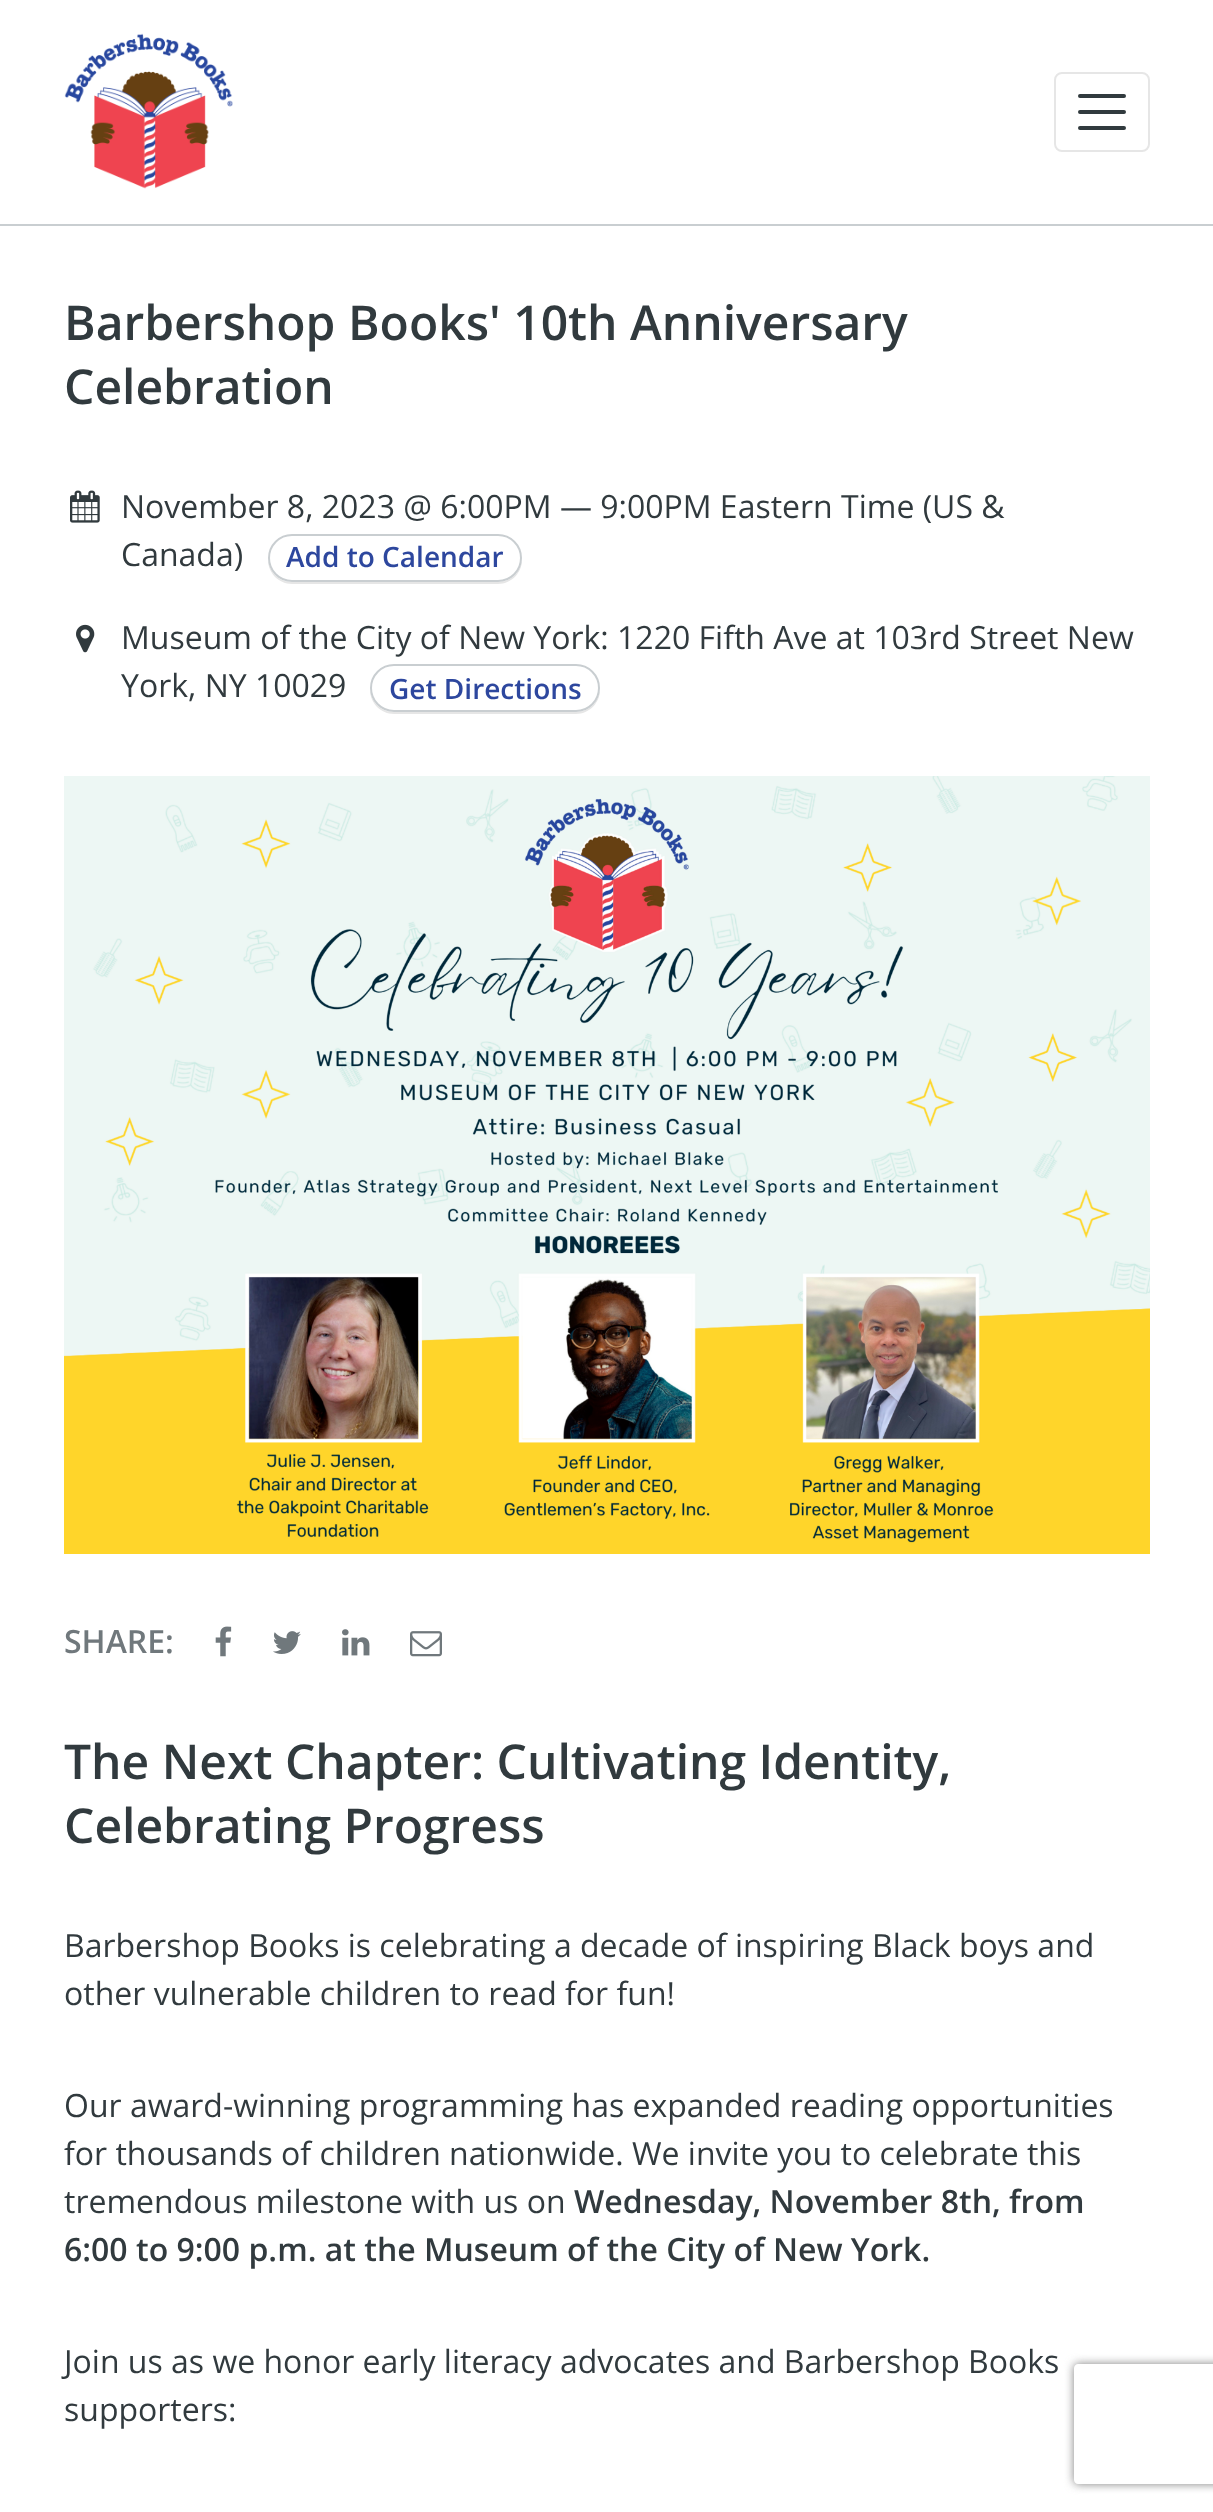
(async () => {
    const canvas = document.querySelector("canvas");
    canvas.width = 1213;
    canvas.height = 2512;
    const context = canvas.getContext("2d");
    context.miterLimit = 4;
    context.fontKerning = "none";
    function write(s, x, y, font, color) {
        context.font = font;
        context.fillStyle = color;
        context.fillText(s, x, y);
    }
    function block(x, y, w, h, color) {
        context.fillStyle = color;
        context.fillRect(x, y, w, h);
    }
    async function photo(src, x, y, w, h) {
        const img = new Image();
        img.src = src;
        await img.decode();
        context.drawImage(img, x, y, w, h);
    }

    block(0, 0, 1213, 2512, "rgb(255, 255, 255)");
    block(0, 224, 1213, 2, "rgb(201, 206, 209)");
    await photo("media/1.png", 64, 33, 169, 156);
    context.beginPath();
    context.roundRect(1055, 73, 94, 78, 7);
    context.strokeStyle = "rgb(230, 230, 230)";
    context.lineWidth = 2;
    context.stroke();
    context.beginPath();
    context.moveTo(1080, 96);
    context.lineTo(1124, 96);
    context.moveTo(1080, 112);
    context.lineTo(1124, 112);
    context.moveTo(1080, 128);
    context.lineTo(1124, 128);
    context.strokeStyle = "rgb(49, 58, 62)";
    context.lineWidth = 4;
    context.lineCap = "round";
    context.stroke();
    write("Barbershop Books' 10th Anniversary", 64, 340, "600 48px Open Sans", "rgb(49, 58, 62)");
    write("Celebration", 64, 404, "600 48px Open Sans", "rgb(49, 58, 62)");
    await photo("media/2.png", 70, 490, 30, 33);
    write("November 8, 2023 @ 6:00PM — 9:00PM Eastern Time (US &", 121, 518, "32px Open Sans", "rgb(49, 58, 62)");
    write("Canada)", 121, 566, "32px Open Sans", "rgb(49, 58, 62)");
    context.fillStyle = "rgb(230, 230, 230)";
    context.beginPath();
    context.moveTo(268, 559);
    context.lineTo(268, 560);
    context.bezierCurveTo(268, 573, 279, 584, 292, 584);
    context.lineTo(498, 584);
    context.bezierCurveTo(511, 584, 522, 573, 522, 560);
    context.lineTo(522, 559);
    context.bezierCurveTo(521, 572, 511, 582, 498, 582);
    context.lineTo(292, 582);
    context.bezierCurveTo(279, 582, 269, 572, 268, 559);
    context.closePath();
    context.fill();
    context.fillStyle = "rgb(255, 255, 255)";
    context.beginPath();
    context.roundRect(269, 535, 252, 46, 23);
    context.fill();
    context.strokeStyle = "rgb(201, 206, 209)";
    context.lineWidth = 2;
    context.stroke();
    write("Add to Calendar", 286, 567, "600 28px Open Sans", "rgb(45, 71, 158)");
    await photo("media/3.png", 76, 624, 19, 29);
    write("Museum of the City of New York: 1220 Fifth Ave at 103rd Street New", 121, 649, "32px Open Sans", "rgb(49, 58, 62)");
    write("York, NY 10029", 121, 697, "32px Open Sans", "rgb(49, 58, 62)");
    context.fillStyle = "rgb(230, 230, 230)";
    context.beginPath();
    context.moveTo(370, 689);
    context.lineTo(370, 690);
    context.bezierCurveTo(370, 703, 381, 714, 394, 714);
    context.lineTo(576, 714);
    context.bezierCurveTo(589, 714, 600, 703, 600, 690);
    context.lineTo(600, 689);
    context.bezierCurveTo(599, 702, 589, 712, 576, 712);
    context.lineTo(394, 712);
    context.bezierCurveTo(381, 712, 371, 702, 370, 689);
    context.closePath();
    context.fill();
    context.fillStyle = "rgb(255, 255, 255)";
    context.beginPath();
    context.roundRect(371, 665, 228, 46, 23);
    context.fill();
    context.stroke();
    write("Get Directions", 389, 699, "600 28px Open Sans", "rgb(45, 71, 158)");
    await photo("media/4.png", 64, 776, 1086, 778);
    write("SHARE:", 64, 1653, "600 32px Open Sans", "rgb(112, 120, 124)");
    await photo("media/5.png", 215, 1626, 17, 31);
    await photo("media/6.png", 273, 1631, 28, 23);
    await photo("media/7.png", 342, 1629, 28, 27);
    await photo("media/8.png", 410, 1631, 32, 26);
    write("The Next Chapter: Cultivating Identity,", 64, 1779, "600 48px Open Sans", "rgb(49, 58, 62)");
    write("Celebrating Progress", 64, 1843, "600 48px Open Sans", "rgb(49, 58, 62)");
    write("Barbershop Books is celebrating a decade of inspiring Black boys and", 64, 1957, "32px Open Sans", "rgb(49, 58, 62)");
    write("other vulnerable children to read for fun!", 64, 2005, "32px Open Sans", "rgb(49, 58, 62)");
    write("Our award-winning programming has expanded reading opportunities", 64, 2117, "32px Open Sans", "rgb(49, 58, 62)");
    write("for thousands of children nationwide. We invite you to celebrate this", 64, 2165, "32px Open Sans", "rgb(49, 58, 62)");
    write("tremendous milestone with us on", 64, 2213, "32px Open Sans", "rgb(49, 58, 62)");
    write("Wednesday, November 8th, from", 574, 2213, "600 32px Open Sans", "rgb(49, 58, 62)");
    write("6:00 to 9:00 p.m. at the Museum of the City of New York.", 64, 2261, "600 32px Open Sans", "rgb(49, 58, 62)");
    write("Join us as we honor early literacy advocates and Barbershop Books", 64, 2373, "32px Open Sans", "rgb(49, 58, 62)");
    write("supporters:", 64, 2421, "32px Open Sans", "rgb(49, 58, 62)");
    context.save();
    context.beginPath();
    context.moveTo(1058, 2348);
    context.lineTo(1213, 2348);
    context.lineTo(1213, 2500);
    context.lineTo(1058, 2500);
    context.closePath();
    context.moveTo(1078, 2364);
    context.lineTo(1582, 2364);
    context.bezierCurveTo(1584, 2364, 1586, 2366, 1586, 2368);
    context.lineTo(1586, 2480);
    context.bezierCurveTo(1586, 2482, 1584, 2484, 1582, 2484);
    context.lineTo(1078, 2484);
    context.bezierCurveTo(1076, 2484, 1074, 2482, 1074, 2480);
    context.lineTo(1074, 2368);
    context.bezierCurveTo(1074, 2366, 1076, 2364, 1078, 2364);
    context.closePath();
    context.clip("evenodd");
    context.fillStyle = "rgb(128, 128, 128)";
    context.filter = "blur(5px)";
    context.beginPath();
    context.roundRect(1074, 2364, 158, 120, 4);
    context.fill();
    context.filter = "none";
    context.restore();
})();
